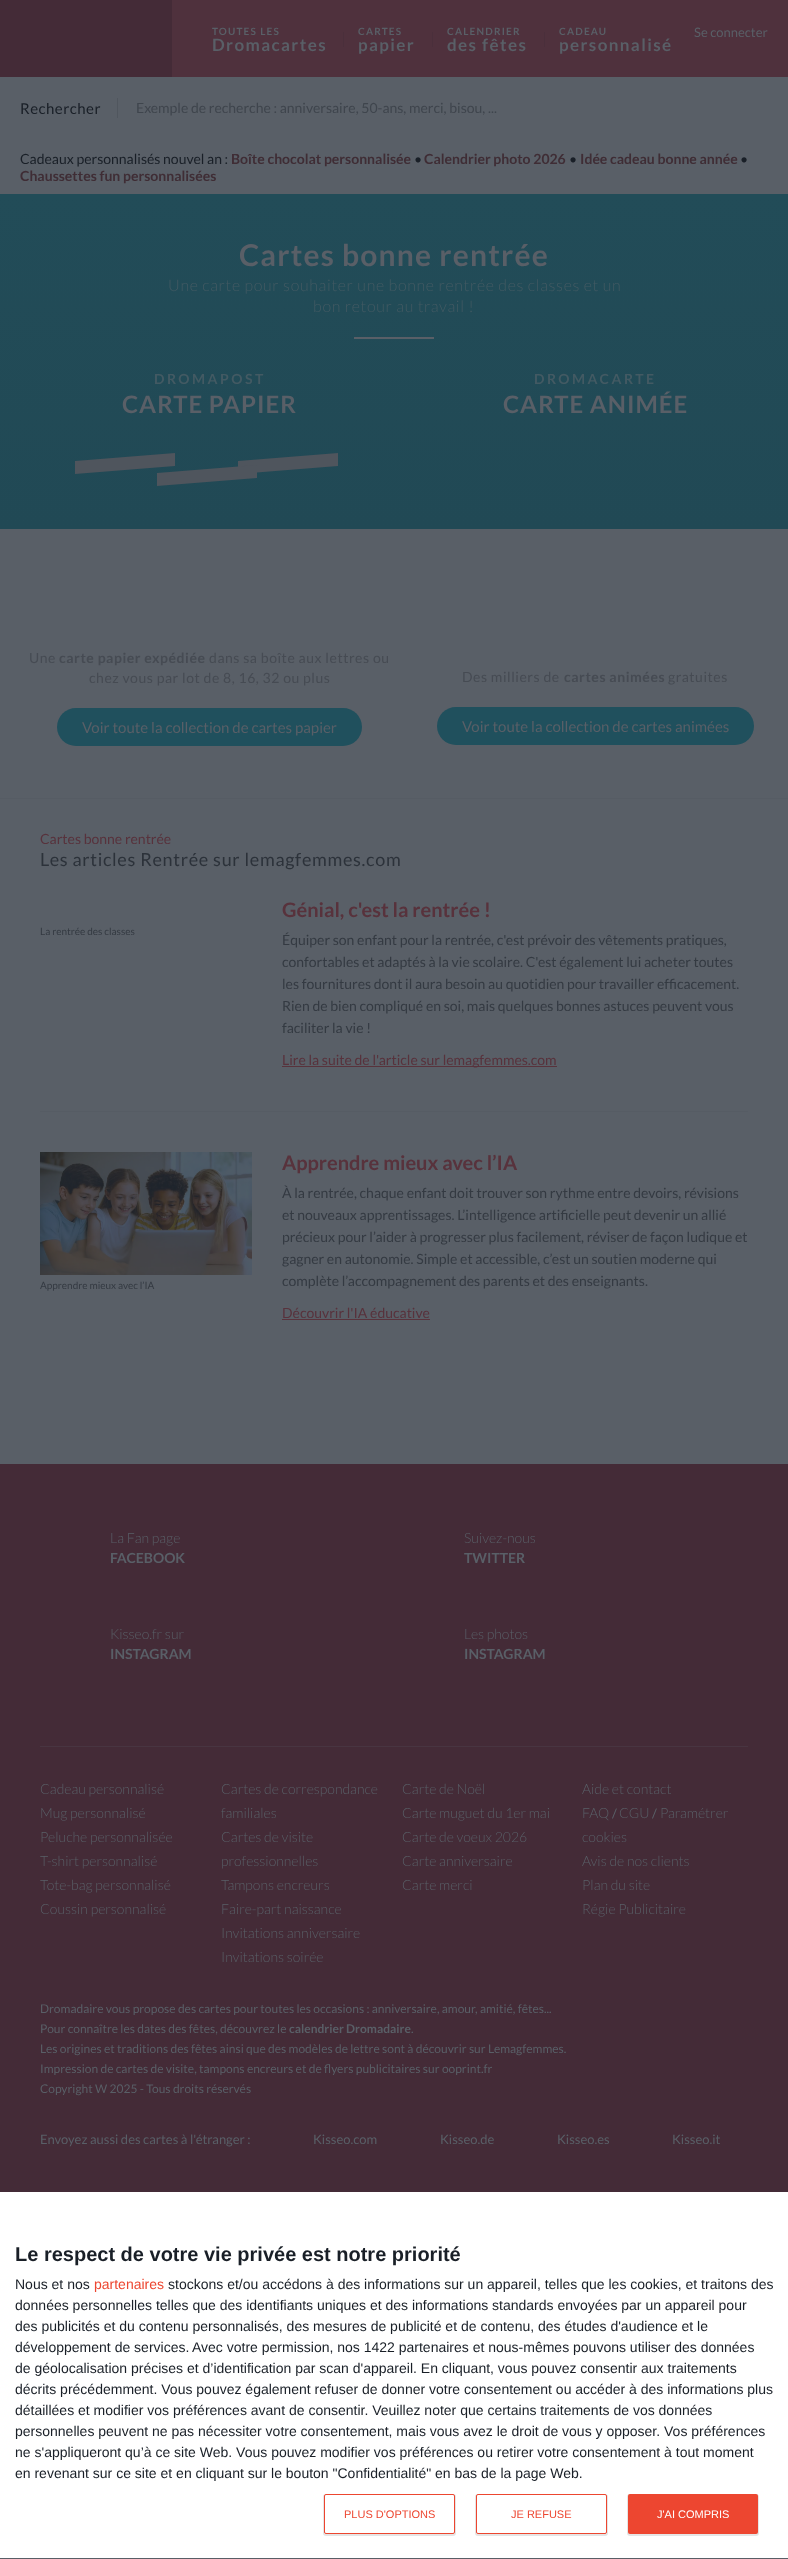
(async () => {
    const canvas = document.querySelector("canvas");
    canvas.width = 788;
    canvas.height = 2559;
    const context = canvas.getContext("2d");
    context.miterLimit = 4;
    context.fontKerning = "normal";
    function write(s, x, y, font, color) {
        context.font = font;
        context.fillStyle = color;
        context.fillText(s, x, y);
    }
    function block(x, y, w, h, color) {
        context.fillStyle = color;
        context.fillRect(x, y, w, h);
    }
    function card(x, y, w, h, r, color) {
        context.fillStyle = color;
        context.beginPath();
        context.roundRect(x, y, w, h, r);
        context.fill();
    }
    async function photo(src, x, y, w, h) {
        const img = new Image();
        img.src = src;
        await img.decode();
        context.drawImage(img, x, y, w, h);
    }
    let gradient;

    block(0, 0, 788, 2559, "rgb(89, 95, 103)");
    block(172, 0, 616, 77, "rgb(79, 49, 61)");
    block(0, 0, 172, 77, "rgb(68, 43, 55)");
    context.letterSpacing = "1.2px";
    write("TOUTES LES", 212, 35, "bold 10px Lato", "rgb(89, 95, 103)");
    context.letterSpacing = "1.4px";
    write("Dromacartes", 212, 51, "bold 17px Lato", "rgb(89, 95, 103)");
    block(343, 32, 1, 15, "rgb(74, 47, 59)");
    context.letterSpacing = "1.2px";
    write("CARTES", 358, 35, "bold 10px Lato", "rgb(89, 95, 103)");
    context.letterSpacing = "1.4px";
    write("papier", 358, 51, "bold 17px Lato", "rgb(89, 95, 103)");
    block(432, 32, 1, 15, "rgb(74, 47, 59)");
    context.letterSpacing = "1.2px";
    write("CALENDRIER", 447, 35, "bold 10px Lato", "rgb(89, 95, 103)");
    context.letterSpacing = "1.4px";
    write("des fêtes", 447, 51, "bold 17px Lato", "rgb(89, 95, 103)");
    block(544, 32, 1, 15, "rgb(74, 47, 59)");
    context.letterSpacing = "1.2px";
    write("CADEAU", 559, 35, "bold 10px Lato", "rgb(89, 95, 103)");
    context.letterSpacing = "1.4px";
    write("personnalisé", 559, 51, "bold 17px Lato", "rgb(89, 95, 103)");
    context.letterSpacing = "0px";
    write("Se connecter", 694, 37, "13px Lato", "rgb(89, 95, 103)");
    block(117, 98, 1, 20, "rgb(80, 86, 94)");
    context.letterSpacing = "0.5px";
    write("Rechercher", 20, 114, "15px Lato", "rgb(25, 31, 39)");
    context.letterSpacing = "0px";
    write("Exemple de recherche : anniversaire, 50-ans, merci, bisou, ...", 136, 113, "14px Lato", "rgb(63, 69, 77)");
    write("Cadeaux personnalisés nouvel an :", 20, 164, "14px Lato", "rgb(25, 31, 39)");
    write("Boîte chocolat personnalisée", 231, 164, "bold 14px Lato", "rgb(63, 45, 53)");
    write("•", 414, 164, "14px Lato", "rgb(25, 31, 39)");
    write("Calendrier photo 2026", 424, 164, "bold 14px Lato", "rgb(63, 45, 53)");
    write("•", 569, 164, "14px Lato", "rgb(25, 31, 39)");
    write("Idée cadeau bonne année", 580, 164, "bold 14px Lato", "rgb(63, 45, 53)");
    write("•", 740, 164, "14px Lato", "rgb(25, 31, 39)");
    write("Chaussettes fun personnalisées", 20, 181, "bold 14px Lato", "rgb(63, 45, 53)");
    gradient = context.createLinearGradient(394, 194, 394, 529);
    gradient.addColorStop(0, "rgb(34, 76, 88)");
    gradient.addColorStop(1, "rgb(33, 73, 85)");
    context.fillStyle = gradient;
    context.fillRect(0, 194, 788, 335);
    context.letterSpacing = "1.2px";
    write("Cartes bonne rentrée", 239, 266, "bold 30px Lato", "rgb(89, 95, 103)");
    context.letterSpacing = "0.65px";
    write("Une carte pour souhaiter une bonne rentrée des classes et un", 168, 291, "300 16px Lato", "rgb(67, 90, 99)");
    write("bon retour au travail !", 313, 312, "300 16px Lato", "rgb(67, 90, 99)");
    block(354, 337, 80, 2, "rgb(89, 95, 103)");
    context.letterSpacing = "2.5px";
    write("DROMAPOST", 154, 384, "bold 14px Lato", "rgb(67, 90, 99)");
    context.letterSpacing = "1px";
    write("CARTE PAPIER", 122, 413, "bold 24px Lato", "rgb(89, 95, 103)");
    context.fillStyle = "rgb(79, 85, 93)";
    context.beginPath();
    context.moveTo(75, 461);
    context.lineTo(175, 453);
    context.lineTo(175, 466);
    context.lineTo(75, 474);
    context.closePath();
    context.fill();
    context.beginPath();
    context.moveTo(238, 461);
    context.lineTo(338, 453);
    context.lineTo(338, 466);
    context.lineTo(238, 474);
    context.closePath();
    context.fill();
    context.beginPath();
    context.moveTo(157, 473);
    context.lineTo(257, 465);
    context.lineTo(257, 478);
    context.lineTo(157, 486);
    context.closePath();
    context.fill();
    context.letterSpacing = "0.55px";
    write("Une", 29, 663, "14px Lato", "rgb(70, 75, 83)");
    write("carte papier expédiée", 59, 663, "bold 14px Lato", "rgb(70, 75, 83)");
    write("dans sa boîte aux lettres ou", 209, 663, "14px Lato", "rgb(70, 75, 83)");
    write("chez vous par lot de 8, 16, 32 ou plus", 89, 683, "14px Lato", "rgb(70, 75, 83)");
    card(57, 708, 305, 38, 19, "rgb(32, 80, 93)");
    context.letterSpacing = "0px";
    write("Voir toute la collection de cartes papier", 82, 733, "15px Lato", "rgb(89, 95, 103)");
    context.letterSpacing = "2.5px";
    write("DROMACARTE", 534, 384, "bold 14px Lato", "rgb(67, 90, 99)");
    context.letterSpacing = "1px";
    write("CARTE ANIMÉE", 503, 413, "bold 24px Lato", "rgb(89, 95, 103)");
    context.letterSpacing = "0.55px";
    write("Des milliers de", 462, 682, "14px Lato", "rgb(70, 75, 83)");
    write("cartes animées", 564, 682, "bold 14px Lato", "rgb(70, 75, 83)");
    write("gratuites", 668, 682, "14px Lato", "rgb(70, 75, 83)");
    card(437, 707, 317, 38, 19, "rgb(32, 80, 93)");
    context.letterSpacing = "0px";
    write("Voir toute la collection de cartes animées", 462, 732, "15px Lato", "rgb(89, 95, 103)");
    block(0, 798, 788, 1, "rgb(86, 92, 100)");
    write("Cartes bonne rentrée", 40, 844, "14px Lato", "rgb(88, 50, 60)");
    context.letterSpacing = "0.7px";
    write("Les articles Rentrée sur lemagfemmes.com", 40, 866, "18px Lato", "rgb(44, 50, 58)");
    block(40, 1111, 708, 1, "rgb(86, 92, 100)");
    context.letterSpacing = "0px";
    write("La rentrée des classes", 40, 935, "10px Lato", "rgb(52, 58, 66)");
    write("Génial, c'est la rentrée !", 282, 917, "bold 20px Lato", "rgb(88, 50, 60)");
    write("Équiper son enfant pour la rentrée, c'est prévoir des vêtements pratiques,", 282, 945, "14px Lato", "rgb(52, 58, 66)");
    write("confortables et adaptés à la vie scolaire. C'est également lui acheter toutes", 282, 967, "14px Lato", "rgb(52, 58, 66)");
    write("les fournitures dont il aura besoin au quotidien pour travailler efficacement.", 282, 989, "14px Lato", "rgb(52, 58, 66)");
    write("Rien de bien compliqué en soi, mais quelques bonnes astuces peuvent vous", 282, 1011, "14px Lato", "rgb(52, 58, 66)");
    write("faciliter la vie !", 282, 1033, "14px Lato", "rgb(52, 58, 66)");
    block(282, 1066, 275, 1, "rgb(88, 51, 60)");
    write("Lire la suite de l'article sur lemagfemmes.com", 282, 1065, "14px Lato", "rgb(88, 50, 60)");
    await photo("media/1.png", 40, 1152, 212, 123);
    write("Apprendre mieux avec l’IA", 40, 1289, "10px Lato", "rgb(52, 58, 66)");
    write("Apprendre mieux avec l’IA", 282, 1170, "bold 20px Lato", "rgb(88, 50, 60)");
    write("À la rentrée, chaque enfant doit trouver son rythme entre devoirs, révisions", 282, 1198, "14px Lato", "rgb(52, 58, 66)");
    write("et nouveaux apprentissages. L’intelligence artificielle peut devenir un allié", 282, 1220, "14px Lato", "rgb(52, 58, 66)");
    write("précieux pour l’aider à progresser plus facilement, réviser de façon ludique et", 282, 1242, "14px Lato", "rgb(52, 58, 66)");
    write("gagner en autonomie. Simple et accessible, c’est un soutien moderne qui", 282, 1264, "14px Lato", "rgb(52, 58, 66)");
    write("complète l’accompagnement des parents et des enseignants.", 282, 1286, "14px Lato", "rgb(52, 58, 66)");
    write("Découvrir l'IA éducative", 282, 1318, "14px Lato", "rgb(88, 50, 60)");
    block(282, 1319, 148, 1, "rgb(88, 51, 60)");
    block(0, 1464, 788, 728, "rgb(68, 43, 55)");
    block(40, 1746, 708, 1, "rgb(72, 53, 65)");
    write("La Fan page", 110, 1543, "300 14px Lato", "rgb(89, 95, 103)");
    write("FACEBOOK", 110, 1563, "bold 14px Lato", "rgb(89, 95, 103)");
    write("Suivez-nous", 464, 1543, "300 14px Lato", "rgb(89, 95, 103)");
    write("TWITTER", 464, 1563, "bold 14px Lato", "rgb(89, 95, 103)");
    write("Kisseo.fr sur", 110, 1639, "300 14px Lato", "rgb(89, 95, 103)");
    write("INSTAGRAM", 110, 1659, "bold 14px Lato", "rgb(89, 95, 103)");
    write("Les photos", 464, 1639, "300 14px Lato", "rgb(89, 95, 103)");
    write("INSTAGRAM", 464, 1659, "bold 14px Lato", "rgb(89, 95, 103)");
    write("Cadeau personnalisé", 40, 1794, "300 14px Lato", "rgb(89, 95, 103)");
    write("Mug personnalisé", 40, 1818, "300 14px Lato", "rgb(89, 95, 103)");
    write("Peluche personnalisée", 40, 1842, "300 14px Lato", "rgb(89, 95, 103)");
    write("T-shirt personnalisé", 40, 1866, "300 14px Lato", "rgb(89, 95, 103)");
    write("Tote-bag personnalisé", 40, 1890, "300 14px Lato", "rgb(89, 95, 103)");
    write("Coussin personnalisé", 40, 1914, "300 14px Lato", "rgb(89, 95, 103)");
    write("Cartes de correspondance", 221, 1794, "300 14px Lato", "rgb(89, 95, 103)");
    write("familiales", 221, 1818, "300 14px Lato", "rgb(89, 95, 103)");
    write("Cartes de visite", 221, 1842, "300 14px Lato", "rgb(89, 95, 103)");
    write("professionnelles", 221, 1866, "300 14px Lato", "rgb(89, 95, 103)");
    write("Tampons encreurs", 221, 1890, "300 14px Lato", "rgb(89, 95, 103)");
    write("Faire-part naissance", 221, 1914, "300 14px Lato", "rgb(89, 95, 103)");
    write("Invitations anniversaire", 221, 1938, "300 14px Lato", "rgb(89, 95, 103)");
    write("Invitations soirée", 221, 1962, "300 14px Lato", "rgb(89, 95, 103)");
    write("Carte de Noël", 402, 1794, "300 14px Lato", "rgb(89, 95, 103)");
    write("Carte muguet du 1er mai", 402, 1818, "300 14px Lato", "rgb(89, 95, 103)");
    write("Carte de voeux 2026", 402, 1842, "300 14px Lato", "rgb(89, 95, 103)");
    write("Carte anniversaire", 402, 1866, "300 14px Lato", "rgb(89, 95, 103)");
    write("Carte merci", 402, 1890, "300 14px Lato", "rgb(89, 95, 103)");
    write("Aide et contact", 582, 1794, "300 14px Lato", "rgb(89, 95, 103)");
    write("FAQ", 582, 1818, "300 14px Lato", "rgb(89, 95, 103)");
    write("/", 612, 1818, "13px Lato", "rgb(89, 95, 103)");
    write("CGU", 619, 1818, "300 14px Lato", "rgb(89, 95, 103)");
    write("/", 652, 1818, "13px Lato", "rgb(89, 95, 103)");
    write("Paramétrer", 660, 1818, "300 14px Lato", "rgb(89, 95, 103)");
    write("cookies", 582, 1842, "300 14px Lato", "rgb(89, 95, 103)");
    write("Avis de nos clients", 582, 1866, "300 14px Lato", "rgb(89, 95, 103)");
    write("Plan du site", 582, 1890, "300 14px Lato", "rgb(89, 95, 103)");
    write("Régie Publicitaire", 582, 1914, "300 14px Lato", "rgb(89, 95, 103)");
    write("Dromadaire vous propose des cartes pour toutes les occasions : anniversaire, amour, amitié, fêtes...", 40, 2013, "12px Lato", "rgb(89, 95, 103)");
    write("Pour connaître les dates des fêtes, découvrez le", 40, 2033, "12px Lato", "rgb(89, 95, 103)");
    write("calendrier Dromadaire", 289, 2033, "bold 12px Lato", "rgb(89, 95, 103)");
    write(".", 411, 2033, "12px Lato", "rgb(89, 95, 103)");
    write("Les origines et traditions des fêtes ainsi que des modèles de lettre sont à découvrir sur Lemagfemmes.", 40, 2053, "12px Lato", "rgb(89, 95, 103)");
    write("Impression de cartes de visite, tampons encreurs et de flyers publicitaires sur ooprint.fr", 40, 2073, "12px Lato", "rgb(89, 95, 103)");
    write("Copyright W 2025 - Tous droits réservés", 40, 2093, "12px Lato", "rgb(89, 95, 103)");
    write("Envoyez aussi des cartes à l'étranger :", 40, 2144, "13px Lato", "rgb(89, 95, 103)");
    write("Kisseo.com", 313, 2144, "13px Lato", "rgb(89, 95, 103)");
    write("Kisseo.de", 440, 2144, "13px Lato", "rgb(89, 95, 103)");
    write("Kisseo.es", 557, 2144, "13px Lato", "rgb(89, 95, 103)");
    write("Kisseo.it", 672, 2144, "13px Lato", "rgb(89, 95, 103)");
    block(0, 2192, 788, 366, "rgb(255, 255, 255)");
    write("Le respect de votre vie privée est notre priorité", 15, 2261, "bold 20px Liberation Sans", "rgb(25, 31, 39)");
    write("Nous et nos", 15, 2289, "14px Liberation Sans", "rgb(25, 31, 39)");
    write("partenaires", 94, 2289, "14px Liberation Sans", "rgb(237, 70, 48)");
    write("stockons et/ou accédons à des informations sur un appareil, telles que les cookies, et traitons des", 168, 2289, "14px Liberation Sans", "rgb(25, 31, 39)");
    write("données personnelles telles que des identifiants uniques et des informations standards envoyées par un appareil pour", 15, 2310, "14px Liberation Sans", "rgb(25, 31, 39)");
    write("des publicités et du contenu personnalisés, des mesures de publicité et de contenu, des études d'audience et le", 15, 2331, "14px Liberation Sans", "rgb(25, 31, 39)");
    write("développement de services.", 15, 2352, "14px Liberation Sans", "rgb(25, 31, 39)");
    write("Avec votre permission, nos 1422 partenaires et nous-mêmes pouvons utiliser des données", 192, 2352, "14px Liberation Sans", "rgb(25, 31, 39)");
    write("de géolocalisation précises et d’identification par scan d'appareil. En cliquant, vous pouvez consentir aux traitements", 15, 2373, "14px Liberation Sans", "rgb(25, 31, 39)");
    write("décrits précédemment. Vous pouvez également refuser de donner votre consentement ou accéder à des informations plus", 15, 2394, "14px Liberation Sans", "rgb(25, 31, 39)");
    write("détaillées et modifier vos préférences avant de consentir. Veuillez noter que certains traitements de vos données", 15, 2415, "14px Liberation Sans", "rgb(25, 31, 39)");
    write("personnelles peuvent ne pas nécessiter votre consentement, mais vous avez le droit de vous y opposer. Vos préférences", 15, 2436, "14px Liberation Sans", "rgb(25, 31, 39)");
    write("ne s'appliqueront qu’à ce site Web. Vous pouvez modifier vos préférences ou retirer votre consentement à tout moment", 15, 2457, "14px Liberation Sans", "rgb(25, 31, 39)");
    write("en revenant sur ce site et en cliquant sur le bouton \"Confidentialité\" en bas de la page Web.", 15, 2478, "14px Liberation Sans", "rgb(25, 31, 39)");
    context.fillStyle = "rgba(0, 0, 0, 0.1)";
    context.filter = "blur(0.5px)";
    context.beginPath();
    context.roundRect(323, 2494, 133, 42, 3);
    context.fill();
    context.filter = "none";
    context.fillStyle = "rgb(255, 255, 255)";
    context.beginPath();
    context.roundRect(324.5, 2494.5, 130, 39, 1.5);
    context.fill();
    context.strokeStyle = "rgb(237, 70, 48)";
    context.stroke();
    write("PLUS D'OPTIONS", 344, 2518, "11px Liberation Sans", "rgb(237, 70, 48)");
    context.fillStyle = "rgba(0, 0, 0, 0.1)";
    context.filter = "blur(0.5px)";
    context.beginPath();
    context.roundRect(475, 2494, 133, 42, 3);
    context.fill();
    context.filter = "none";
    context.fillStyle = "rgb(255, 255, 255)";
    context.beginPath();
    context.roundRect(476.5, 2494.5, 130, 39, 1.5);
    context.fill();
    context.stroke();
    write("JE REFUSE", 511, 2518, "11px Liberation Sans", "rgb(237, 70, 48)");
    context.fillStyle = "rgba(0, 0, 0, 0.1)";
    context.filter = "blur(0.5px)";
    context.beginPath();
    context.roundRect(627, 2494, 132, 42, 3);
    context.fill();
    context.filter = "none";
    card(628, 2494, 130, 40, 2, "rgb(237, 70, 48)");
    write("J'AI COMPRIS", 657, 2518, "11px Liberation Sans", "rgb(255, 255, 255)");
})();
